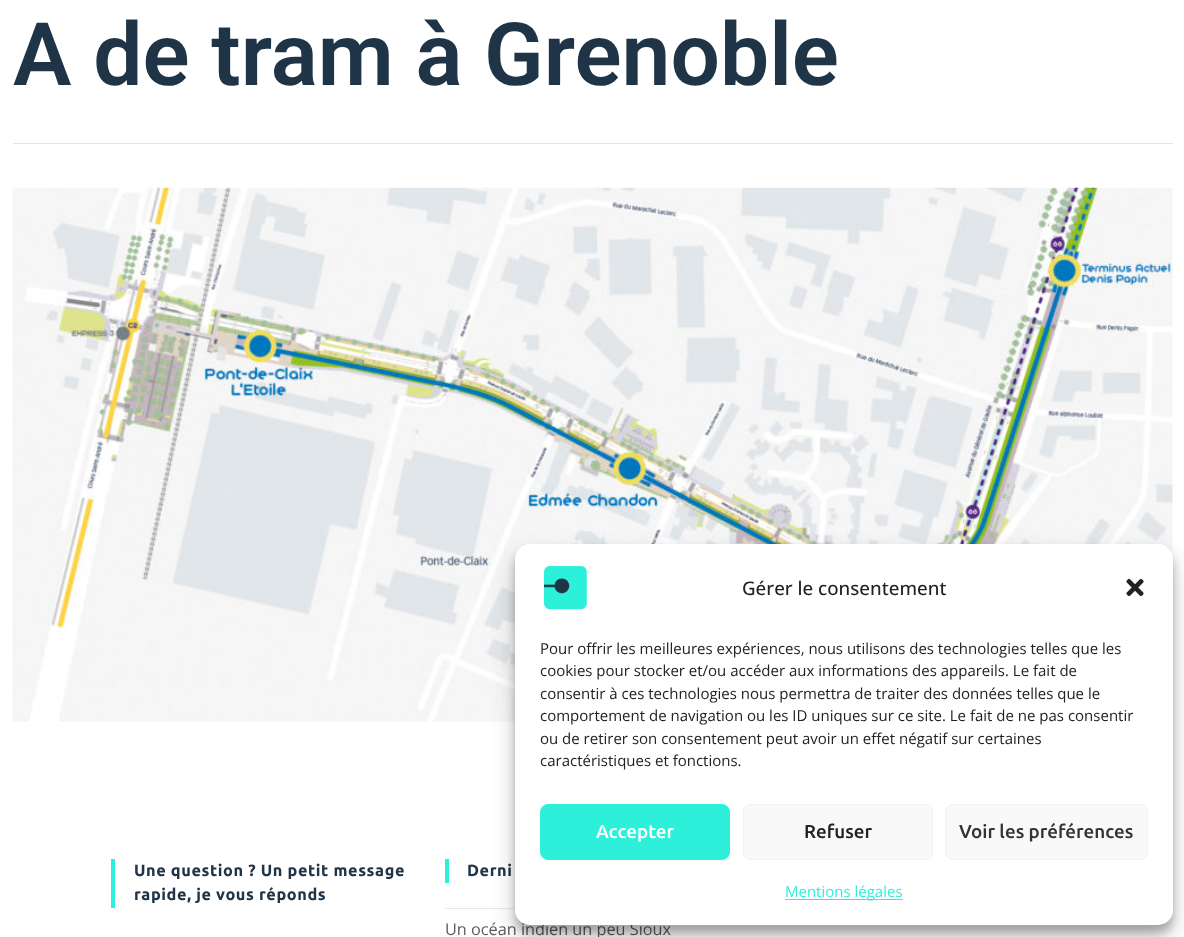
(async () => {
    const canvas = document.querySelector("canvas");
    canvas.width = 1184;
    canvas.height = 937;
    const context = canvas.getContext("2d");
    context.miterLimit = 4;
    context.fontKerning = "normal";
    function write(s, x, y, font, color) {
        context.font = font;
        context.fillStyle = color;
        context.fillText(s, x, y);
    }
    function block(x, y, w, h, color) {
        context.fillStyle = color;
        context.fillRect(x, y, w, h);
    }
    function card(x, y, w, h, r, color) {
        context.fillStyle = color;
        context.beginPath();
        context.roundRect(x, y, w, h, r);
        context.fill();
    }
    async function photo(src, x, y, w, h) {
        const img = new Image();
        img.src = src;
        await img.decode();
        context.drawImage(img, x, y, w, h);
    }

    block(0, 0, 1184, 937, "rgb(255, 255, 255)");
    write("A de tram à Grenoble", 13, 85, "600 87.5px Roboto", "rgb(31, 52, 71)");
    block(13, 143, 1160, 1, "rgb(229, 227, 222)");
    await photo("media/1.png", 12, 187, 1161, 535);
    block(111, 859, 4, 49, "rgb(44, 240, 217)");
    context.letterSpacing = "0.6px";
    write("Une question ? Un petit message", 134, 876, "bold 16.25px Ubuntu", "rgb(31, 52, 71)");
    write("rapide, je vous réponds", 134, 900, "bold 16.25px Ubuntu", "rgb(31, 52, 71)");
    block(445, 859, 4, 24, "rgb(44, 240, 217)");
    write("Derni", 467, 876, "bold 16.25px Ubuntu", "rgb(31, 52, 71)");
    block(445, 908, 70, 1, "rgb(233, 233, 233)");
    context.letterSpacing = "0px";
    write("Un océan indien un peu Sioux", 445, 935, "16.25px Open Sans", "rgb(91, 91, 91)");
    context.fillStyle = "rgba(0, 0, 0, 0.23)";
    context.filter = "blur(4px)";
    context.beginPath();
    context.roundRect(515, 551, 658, 382, 15);
    context.fill();
    context.filter = "none";
    context.fillStyle = "rgba(0, 0, 0, 0.19)";
    context.filter = "blur(12.5px)";
    context.beginPath();
    context.roundRect(515, 556, 658, 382, 15);
    context.fill();
    context.filter = "none";
    card(515, 544, 658, 381, 15, "rgb(255, 255, 255)");
    await photo("media/2.png", 544, 566, 43, 44);
    write("Gérer le consentement", 742, 595, "500 18.75px Open Sans", "rgb(34, 34, 34)");
    await photo("media/3.png", 1126, 578, 18, 18);
    write("Pour offrir les meilleures expériences, nous utilisons des technologies telles que les", 540, 654, "15px Open Sans", "rgb(34, 34, 34)");
    write("cookies pour stocker et/ou accéder aux informations des appareils. Le fait de", 540, 676, "15px Open Sans", "rgb(34, 34, 34)");
    write("consentir à ces technologies nous permettra de traiter des données telles que le", 540, 699, "15px Open Sans", "rgb(34, 34, 34)");
    write("comportement de navigation ou les ID uniques sur ce site. Le fait de ne pas consentir", 540, 721, "15px Open Sans", "rgb(34, 34, 34)");
    write("ou de retirer son consentement peut avoir un effet négatif sur certaines", 540, 744, "15px Open Sans", "rgb(34, 34, 34)");
    write("caractéristiques et fonctions.", 540, 766, "15px Open Sans", "rgb(34, 34, 34)");
    context.fillStyle = "rgb(44, 240, 217)";
    context.beginPath();
    context.roundRect(540.5, 804.5, 189, 55, 7.5);
    context.fill();
    context.strokeStyle = "rgb(44, 240, 217)";
    context.stroke();
    write("Accepter", 596, 838, "500 18.75px Ubuntu", "rgb(255, 255, 255)");
    context.fillStyle = "rgb(249, 249, 249)";
    context.beginPath();
    context.roundRect(743.5, 804.5, 189, 55, 7.5);
    context.fill();
    context.strokeStyle = "rgb(242, 242, 242)";
    context.stroke();
    write("Refuser", 804, 838, "500 18.75px Ubuntu", "rgb(34, 34, 34)");
    context.fillStyle = "rgb(249, 249, 249)";
    context.beginPath();
    context.roundRect(945.5, 804.5, 202, 55, 7.5);
    context.fill();
    context.stroke();
    write("Voir les préférences", 959, 838, "500 18.75px Ubuntu", "rgb(51, 51, 51)");
    block(785, 899, 118, 1, "rgb(44, 240, 217)");
    write("Mentions légales", 785, 897, "15px Open Sans", "rgb(44, 240, 217)");
})();
